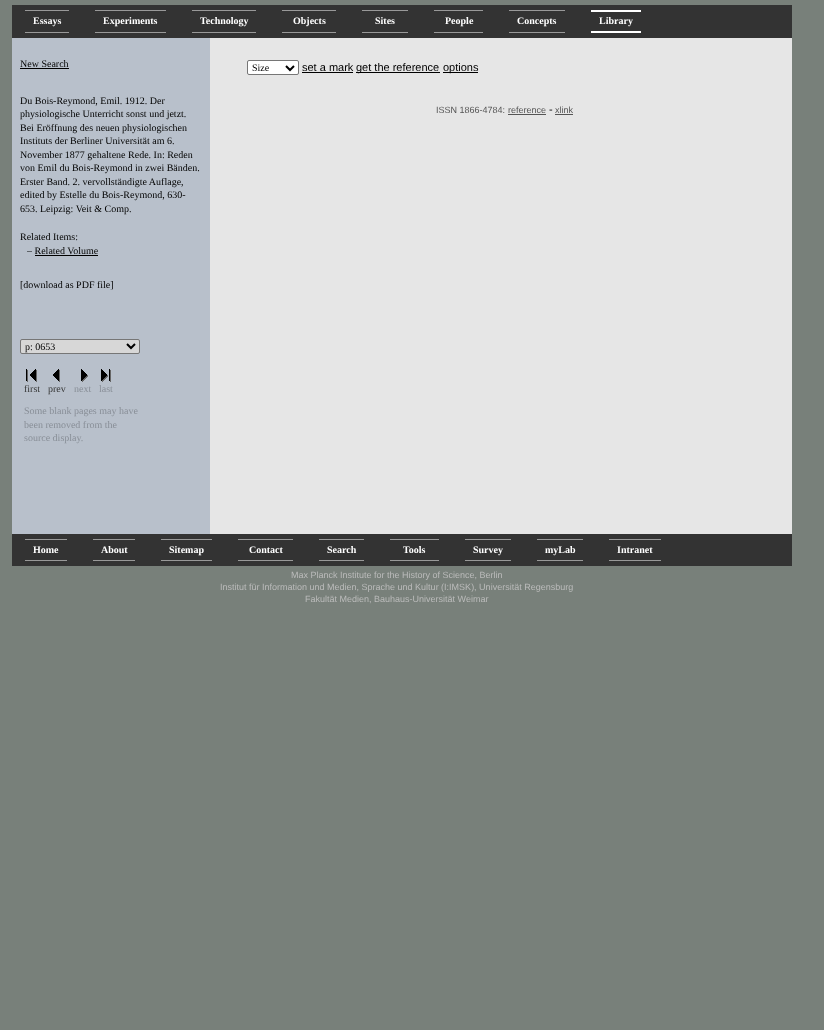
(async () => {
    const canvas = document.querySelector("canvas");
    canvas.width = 824;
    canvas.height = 1030;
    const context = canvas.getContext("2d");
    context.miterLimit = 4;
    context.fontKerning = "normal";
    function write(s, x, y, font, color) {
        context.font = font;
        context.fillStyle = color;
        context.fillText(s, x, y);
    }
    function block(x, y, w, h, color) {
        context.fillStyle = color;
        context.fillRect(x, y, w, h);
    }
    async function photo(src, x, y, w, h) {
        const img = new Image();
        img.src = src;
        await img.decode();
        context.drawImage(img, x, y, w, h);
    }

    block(0, 0, 824, 1030, "rgb(120, 128, 122)");
    block(12, 5, 780, 33, "rgb(51, 51, 51)");
    block(25, 10, 44, 1, "rgb(153, 153, 153)");
    block(25, 32, 44, 1, "rgb(153, 153, 153)");
    write("Essays", 33, 24, "bold 10px Liberation Serif", "rgb(255, 255, 255)");
    block(95, 10, 71, 1, "rgb(153, 153, 153)");
    block(95, 32, 71, 1, "rgb(153, 153, 153)");
    write("Experiments", 103, 24, "bold 10px Liberation Serif", "rgb(255, 255, 255)");
    block(192, 10, 64, 1, "rgb(153, 153, 153)");
    block(192, 32, 64, 1, "rgb(153, 153, 153)");
    write("Technology", 200, 24, "bold 10px Liberation Serif", "rgb(255, 255, 255)");
    block(282, 10, 54, 1, "rgb(153, 153, 153)");
    block(282, 32, 54, 1, "rgb(153, 153, 153)");
    write("Objects", 293, 24, "bold 10px Liberation Serif", "rgb(255, 255, 255)");
    block(362, 10, 46, 1, "rgb(153, 153, 153)");
    block(362, 32, 46, 1, "rgb(153, 153, 153)");
    write("Sites", 375, 24, "bold 10px Liberation Serif", "rgb(255, 255, 255)");
    block(434, 10, 49, 1, "rgb(153, 153, 153)");
    block(434, 32, 49, 1, "rgb(153, 153, 153)");
    write("People", 445, 24, "bold 10px Liberation Serif", "rgb(255, 255, 255)");
    block(509, 10, 56, 1, "rgb(153, 153, 153)");
    block(509, 32, 56, 1, "rgb(153, 153, 153)");
    write("Concepts", 517, 24, "bold 10px Liberation Serif", "rgb(255, 255, 255)");
    block(591, 10, 50, 2, "rgb(255, 255, 255)");
    block(591, 31, 50, 2, "rgb(255, 255, 255)");
    write("Library", 599, 24, "bold 10px Liberation Serif", "rgb(255, 255, 255)");
    block(12, 38, 198, 496, "rgb(184, 192, 203)");
    write("New Search", 20, 67, "10px Liberation Serif", "rgb(0, 0, 0)");
    block(20, 68, 49, 1, "rgb(0, 0, 0)");
    write("Du Bois-Reymond, Emil. 1912. Der", 20, 104, "10px Liberation Serif", "rgb(0, 0, 0)");
    write("physiologische Unterricht sonst und jetzt.", 20, 117, "10px Liberation Serif", "rgb(0, 0, 0)");
    write("Bei Eröffnung des neuen physiologischen", 20, 131, "10px Liberation Serif", "rgb(0, 0, 0)");
    write("Instituts der Berliner Universität am 6.", 20, 144, "10px Liberation Serif", "rgb(0, 0, 0)");
    write("November 1877 gehaltene Rede. In: Reden", 20, 158, "10px Liberation Serif", "rgb(0, 0, 0)");
    write("von Emil du Bois-Reymond in zwei Bänden.", 20, 171, "10px Liberation Serif", "rgb(0, 0, 0)");
    write("Erster Band. 2. vervollständigte Auflage,", 20, 185, "10px Liberation Serif", "rgb(0, 0, 0)");
    write("edited by Estelle du Bois-Reymond, 630-", 20, 198, "10px Liberation Serif", "rgb(0, 0, 0)");
    write("653. Leipzig: Veit & Comp.", 20, 212, "10px Liberation Serif", "rgb(0, 0, 0)");
    write("Related Items:", 20, 240, "10px Liberation Serif", "rgb(0, 0, 0)");
    write("– Related Volume", 27, 254, "10px Liberation Serif", "rgb(0, 0, 0)");
    block(35, 255, 63, 1, "rgb(0, 0, 0)");
    write("[download as PDF file]", 20, 288, "10px Liberation Serif", "rgb(0, 0, 0)");
    context.fillStyle = "rgb(215, 215, 215)";
    context.beginPath();
    context.roundRect(20.5, 339.5, 119, 14, 1.5);
    context.fill();
    context.strokeStyle = "rgb(118, 118, 118)";
    context.stroke();
    context.beginPath();
    context.moveTo(127, 344);
    context.lineTo(131, 348);
    context.lineTo(135, 344);
    context.strokeStyle = "rgb(0, 0, 0)";
    context.lineWidth = 2;
    context.stroke();
    write("p: 0653", 25, 350, "10px Liberation Serif", "rgb(0, 0, 0)");
    await photo("media/1.png", 26, 369, 11, 13);
    write("first", 24, 392, "10px Liberation Serif", "rgb(51, 51, 51)");
    await photo("media/2.png", 53, 369, 7, 13);
    write("prev", 48, 392, "10px Liberation Serif", "rgb(51, 51, 51)");
    await photo("media/3.png", 81, 369, 7, 13);
    write("next", 74, 392, "10px Liberation Serif", "rgb(136, 142, 151)");
    await photo("media/4.png", 101, 369, 10, 13);
    write("last", 99, 392, "10px Liberation Serif", "rgb(136, 142, 151)");
    write("Some blank pages may have", 24, 414, "10px Liberation Serif", "rgb(136, 142, 151)");
    write("been removed from the", 24, 428, "10px Liberation Serif", "rgb(136, 142, 151)");
    write("source display.", 24, 441, "10px Liberation Serif", "rgb(136, 142, 151)");
    block(210, 38, 17, 496, "rgb(230, 230, 230)");
    block(227, 38, 565, 496, "rgb(230, 230, 230)");
    context.fillStyle = "rgb(255, 255, 255)";
    context.beginPath();
    context.roundRect(247.5, 60.5, 51, 14, 1.5);
    context.fill();
    context.strokeStyle = "rgb(118, 118, 118)";
    context.lineWidth = 1;
    context.stroke();
    context.beginPath();
    context.moveTo(286, 66);
    context.lineTo(290, 70);
    context.lineTo(294, 66);
    context.strokeStyle = "rgb(0, 0, 0)";
    context.lineWidth = 2;
    context.stroke();
    write("Size", 252, 71, "10px Liberation Serif", "rgb(0, 0, 0)");
    write("set a mark", 302, 71, "11px Liberation Sans", "rgb(0, 0, 0)");
    block(302, 72, 51, 1, "rgb(0, 0, 0)");
    block(356, 72, 84, 1, "rgb(0, 0, 0)");
    write("get the reference", 356, 71, "11px Liberation Sans", "rgb(0, 0, 0)");
    block(443, 72, 35, 1, "rgb(0, 0, 0)");
    write("options", 443, 71, "11px Liberation Sans", "rgb(0, 0, 0)");
    write("ISSN 1866-4784:", 436, 113, "9px Liberation Sans", "rgb(85, 85, 85)");
    write("reference", 508, 113, "9px Liberation Sans", "rgb(85, 85, 85)");
    block(508, 114, 38, 1, "rgb(85, 85, 85)");
    write("-", 549, 113, "11px Liberation Sans", "rgb(0, 0, 0)");
    write("xlink", 555, 113, "9px Liberation Sans", "rgb(85, 85, 85)");
    block(555, 114, 18, 1, "rgb(85, 85, 85)");
    block(12, 534, 780, 32, "rgb(51, 51, 51)");
    block(25, 539, 42, 1, "rgb(153, 153, 153)");
    block(25, 560, 42, 1, "rgb(153, 153, 153)");
    write("Home", 33, 553, "bold 10px Liberation Serif", "rgb(255, 255, 255)");
    block(93, 539, 42, 1, "rgb(153, 153, 153)");
    block(93, 560, 42, 1, "rgb(153, 153, 153)");
    write("About", 101, 553, "bold 10px Liberation Serif", "rgb(255, 255, 255)");
    block(161, 539, 51, 1, "rgb(153, 153, 153)");
    block(161, 560, 51, 1, "rgb(153, 153, 153)");
    write("Sitemap", 169, 553, "bold 10px Liberation Serif", "rgb(255, 255, 255)");
    block(238, 539, 55, 1, "rgb(153, 153, 153)");
    block(238, 560, 55, 1, "rgb(153, 153, 153)");
    write("Contact", 249, 553, "bold 10px Liberation Serif", "rgb(255, 255, 255)");
    block(319, 539, 45, 1, "rgb(153, 153, 153)");
    block(319, 560, 45, 1, "rgb(153, 153, 153)");
    write("Search", 327, 553, "bold 10px Liberation Serif", "rgb(255, 255, 255)");
    block(390, 539, 49, 1, "rgb(153, 153, 153)");
    block(390, 560, 49, 1, "rgb(153, 153, 153)");
    write("Tools", 403, 553, "bold 10px Liberation Serif", "rgb(255, 255, 255)");
    block(465, 539, 46, 1, "rgb(153, 153, 153)");
    block(465, 560, 46, 1, "rgb(153, 153, 153)");
    write("Survey", 473, 553, "bold 10px Liberation Serif", "rgb(255, 255, 255)");
    block(537, 539, 46, 1, "rgb(153, 153, 153)");
    block(537, 560, 46, 1, "rgb(153, 153, 153)");
    write("myLab", 545, 553, "bold 10px Liberation Serif", "rgb(255, 255, 255)");
    block(609, 539, 52, 1, "rgb(153, 153, 153)");
    block(609, 560, 52, 1, "rgb(153, 153, 153)");
    write("Intranet", 617, 553, "bold 10px Liberation Serif", "rgb(255, 255, 255)");
    write("Max Planck Institute for the History of Science, Berlin", 291, 578, "9px Liberation Sans", "rgb(187, 187, 187)");
    write("Institut für Information und Medien, Sprache und Kultur (I:IMSK), Universität Regensburg", 220, 590, "9px Liberation Sans", "rgb(187, 187, 187)");
    write("Fakultät Medien, Bauhaus-Universität Weimar", 305, 602, "9px Liberation Sans", "rgb(187, 187, 187)");
})();
